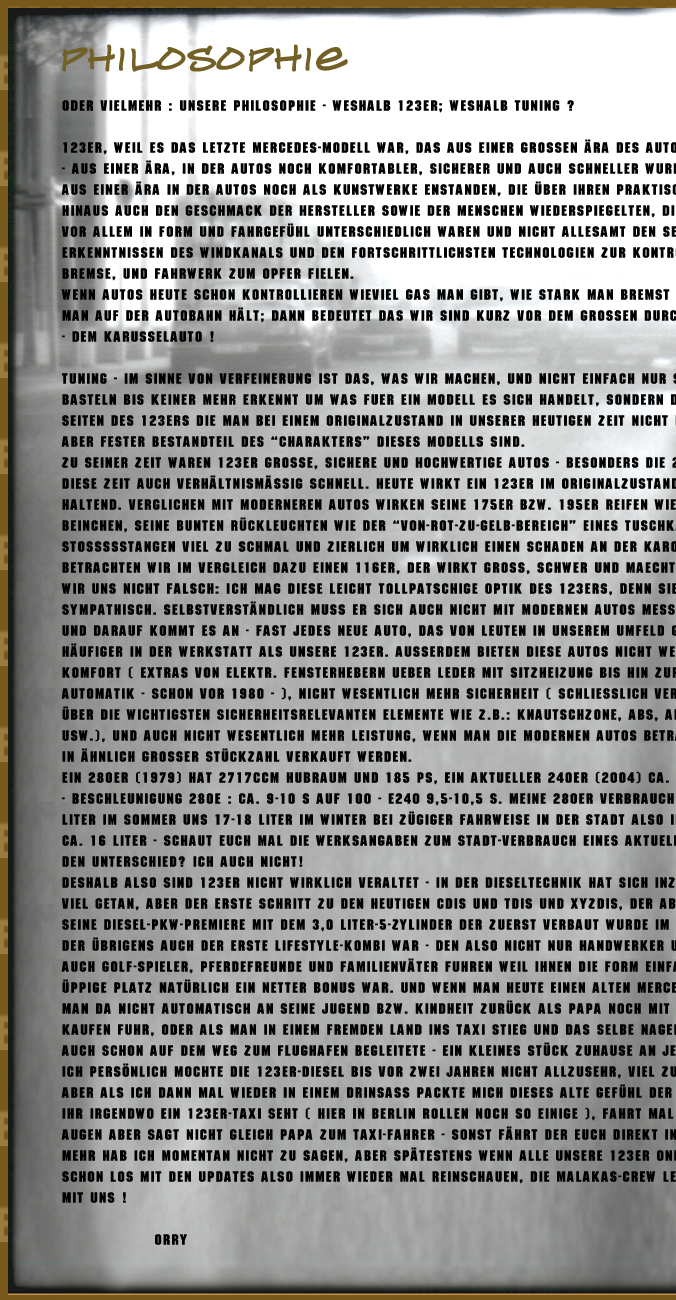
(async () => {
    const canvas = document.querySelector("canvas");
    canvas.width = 676;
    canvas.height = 1300;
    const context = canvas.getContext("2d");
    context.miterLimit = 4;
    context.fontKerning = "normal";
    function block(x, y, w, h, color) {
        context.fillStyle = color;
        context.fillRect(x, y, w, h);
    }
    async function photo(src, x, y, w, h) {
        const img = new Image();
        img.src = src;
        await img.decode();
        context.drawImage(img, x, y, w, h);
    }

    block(0, 0, 676, 1300, "rgb(255, 255, 255)");
    await photo("media/1.png", 0, 0, 676, 1300);
    await photo("media/2.png", 8, 8, 668, 1287);
})();
